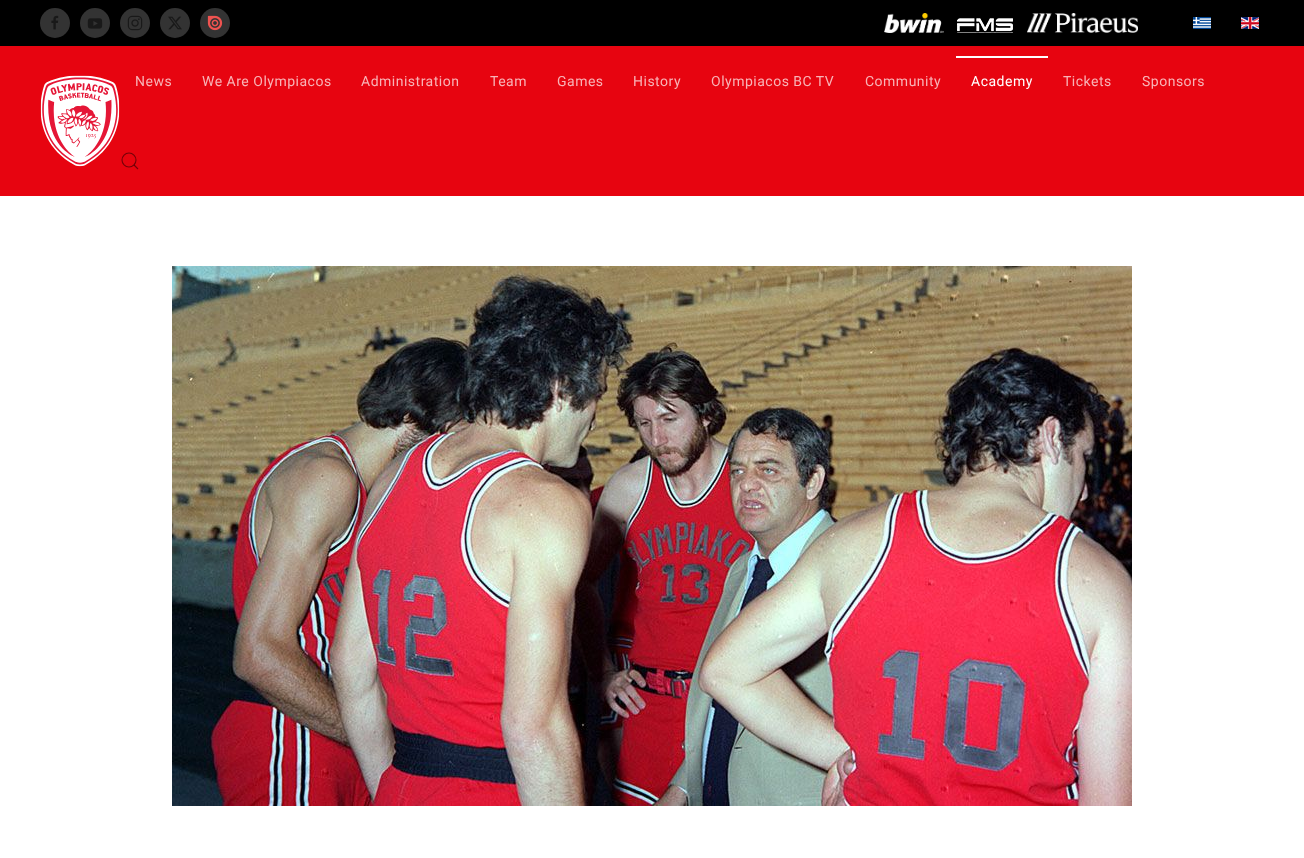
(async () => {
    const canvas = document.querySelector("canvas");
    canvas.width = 1304;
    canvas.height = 858;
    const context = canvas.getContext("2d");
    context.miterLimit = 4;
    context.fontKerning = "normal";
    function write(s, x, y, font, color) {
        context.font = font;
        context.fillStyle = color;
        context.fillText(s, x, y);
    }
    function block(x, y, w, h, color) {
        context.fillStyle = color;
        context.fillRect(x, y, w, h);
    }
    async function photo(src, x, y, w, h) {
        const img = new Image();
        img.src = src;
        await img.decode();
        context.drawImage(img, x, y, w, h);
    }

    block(0, 0, 1304, 858, "rgb(255, 255, 255)");
    block(0, 0, 1304, 46, "rgb(0, 0, 0)");
    context.fillStyle = "rgb(51, 51, 51)";
    context.beginPath();
    context.arc(55, 23, 15, 0, Math.PI * 2);
    context.fill();
    await photo("media/1.png", 51, 15, 8, 15);
    context.beginPath();
    context.arc(95, 23, 15, 0, Math.PI * 2);
    context.fill();
    await photo("media/2.png", 87, 18, 16, 11);
    context.beginPath();
    context.arc(135, 23, 15, 0, Math.PI * 2);
    context.fill();
    await photo("media/3.png", 127, 15, 16, 16);
    context.beginPath();
    context.arc(175, 23, 15, 0, Math.PI * 2);
    context.fill();
    await photo("media/4.png", 168, 16, 14, 14);
    context.beginPath();
    context.arc(215, 23, 15, 0, Math.PI * 2);
    context.fill();
    await photo("media/5.png", 207, 15, 16, 16);
    await photo("media/6.png", 884, 13, 60, 20);
    await photo("media/7.png", 957, 18, 56, 15);
    await photo("media/8.png", 1027, 13, 111, 20);
    await photo("media/9.png", 1193, 17, 18, 12);
    await photo("media/10.png", 1241, 17, 18, 12);
    block(0, 46, 1304, 150, "rgb(231, 4, 16)");
    await photo("media/11.png", 40, 75, 80, 92);
    context.letterSpacing = "0.5px";
    write("Νews", 135, 86, "14px Roboto", "rgb(248, 180, 183)");
    write("We Are Olympiacos", 202, 86, "14px Roboto", "rgb(248, 180, 183)");
    write("Administration", 361, 86, "14px Roboto", "rgb(248, 180, 183)");
    write("Team", 490, 86, "14px Roboto", "rgb(248, 180, 183)");
    write("Games", 557, 86, "14px Roboto", "rgb(248, 180, 183)");
    write("History", 633, 86, "14px Roboto", "rgb(248, 180, 183)");
    write("Olympiacos BC TV", 711, 86, "14px Roboto", "rgb(248, 180, 183)");
    write("Community", 865, 86, "14px Roboto", "rgb(248, 180, 183)");
    block(956, 56, 92, 2, "rgb(255, 255, 255)");
    write("Academy", 971, 86, "14px Roboto", "rgb(255, 255, 255)");
    write("Tickets", 1063, 86, "14px Roboto", "rgb(248, 180, 183)");
    write("Sponsors", 1142, 86, "14px Roboto", "rgb(248, 180, 183)");
    context.beginPath();
    context.arc(129, 160, 7, 0, Math.PI * 2);
    context.strokeStyle = "rgb(116, 2, 8)";
    context.lineWidth = 1.1;
    context.stroke();
    context.beginPath();
    context.moveTo(134, 165);
    context.lineTo(138, 169);
    context.closePath();
    context.strokeStyle = "rgba(0, 0, 0, 0.5)";
    context.stroke();
    await photo("media/12.png", 172, 266, 960, 540);
})();
